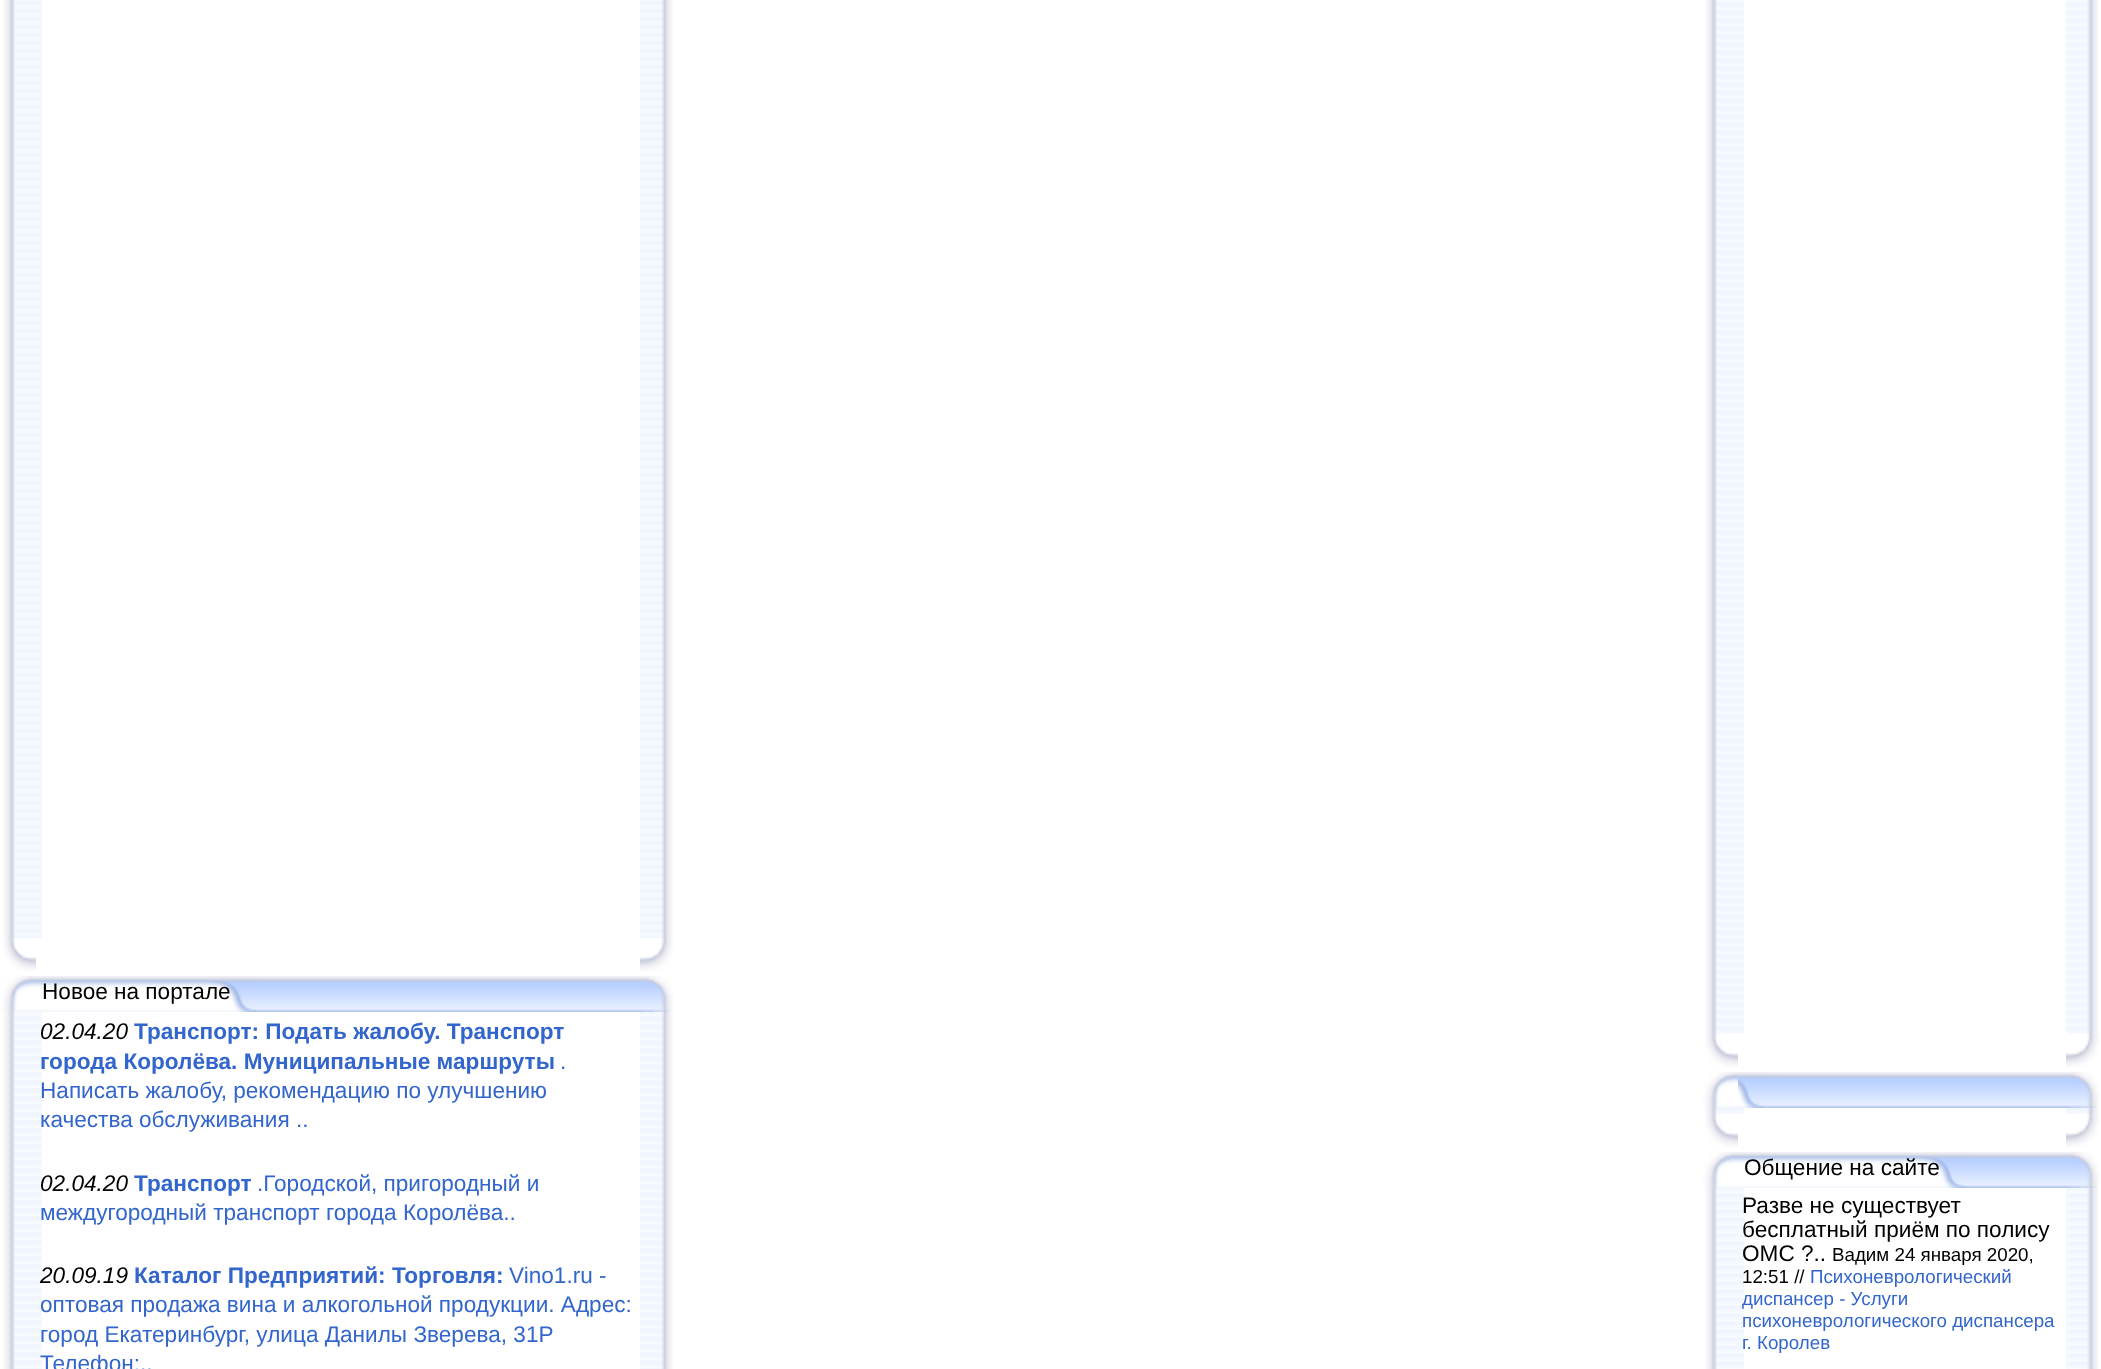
(async () => {
    const canvas = document.querySelector("canvas");
    canvas.width = 2101;
    canvas.height = 1369;
    const context = canvas.getContext("2d");
    context.miterLimit = 4;
    context.fontKerning = "normal";
    function write(s, x, y, font, color) {
        context.font = font;
        context.fillStyle = color;
        context.fillText(s, x, y);
    }
    function block(x, y, w, h, color) {
        context.fillStyle = color;
        context.fillRect(x, y, w, h);
    }
    async function photo(src, x, y, w, h) {
        const img = new Image();
        img.src = src;
        await img.decode();
        context.drawImage(img, x, y, w, h);
    }

    block(0, 0, 2101, 1369, "rgb(255, 255, 255)");
    await photo("media/1.png", 3, 0, 39, 938);
    await photo("media/2.png", 640, 0, 33, 938);
    await photo("media/3.png", 3, 938, 33, 33);
    await photo("media/4.png", 640, 938, 33, 33);
    await photo("media/5.png", 30, 976, 610, 36);
    await photo("media/6.png", 30, 980, 227, 32);
    await photo("media/7.png", 0, 976, 30, 36);
    write("Новое на портале", 42, 999, "22.6px Liberation Sans", "rgb(0, 0, 0)");
    await photo("media/8.png", 640, 976, 33, 36);
    await photo("media/9.png", 3, 1012, 39, 357);
    write("02.04.20", 40, 1039, "italic 22.6px Liberation Sans", "rgb(0, 0, 0)");
    write("Транспорт: Подать жалобу. Транспорт", 134, 1039, "bold 22.6px Liberation Sans", "rgb(51, 102, 204)");
    write("города Королёва. Муниципальные маршруты", 40, 1069, "bold 22.6px Liberation Sans", "rgb(51, 102, 204)");
    write(".", 560, 1069, "22.6px Liberation Sans", "rgb(51, 102, 204)");
    write("Написать жалобу, рекомендацию по улучшению", 40, 1098, "22.6px Liberation Sans", "rgb(51, 102, 204)");
    write("качества обслуживания ..", 40, 1127, "22.6px Liberation Sans", "rgb(51, 102, 204)");
    write("02.04.20", 40, 1191, "italic 22.6px Liberation Sans", "rgb(0, 0, 0)");
    write("Транспорт", 134, 1191, "bold 22.6px Liberation Sans", "rgb(51, 102, 204)");
    write(".Городской, пригородный и", 257, 1191, "22.6px Liberation Sans", "rgb(51, 102, 204)");
    write("междугородный транспорт города Королёва..", 40, 1220, "22.6px Liberation Sans", "rgb(51, 102, 204)");
    write("20.09.19", 40, 1283, "italic 22.6px Liberation Sans", "rgb(0, 0, 0)");
    write("Каталог Предприятий: Торговля:", 134, 1283, "bold 22.6px Liberation Sans", "rgb(51, 102, 204)");
    write("Vino1.ru -", 509, 1283, "22.6px Liberation Sans", "rgb(51, 102, 204)");
    write("оптовая продажа вина и алкогольной продукции. Адрес:", 40, 1312, "22.6px Liberation Sans", "rgb(51, 102, 204)");
    write("город Екатеринбург, улица Данилы Зверева, 31Р", 40, 1342, "22.6px Liberation Sans", "rgb(51, 102, 204)");
    write("Телефон:..", 40, 1371, "22.6px Liberation Sans", "rgb(51, 102, 204)");
    await photo("media/10.png", 640, 1012, 33, 357);
    await photo("media/11.png", 1705, 0, 39, 1034);
    await photo("media/12.png", 2066, 0, 33, 1034);
    await photo("media/3.png", 1705, 1034, 33, 33);
    await photo("media/4.png", 2066, 1034, 33, 33);
    await photo("media/13.png", 1738, 1072, 328, 36);
    await photo("media/14.png", 1738, 1076, 26, 32);
    await photo("media/15.png", 1702, 1072, 36, 36);
    await photo("media/8.png", 2066, 1072, 33, 36);
    await photo("media/16.png", 1705, 1108, 39, 6);
    await photo("media/17.png", 2066, 1108, 33, 6);
    await photo("media/3.png", 1705, 1114, 33, 33);
    await photo("media/4.png", 2066, 1114, 33, 33);
    await photo("media/18.png", 1732, 1152, 334, 36);
    await photo("media/19.png", 1732, 1156, 235, 32);
    await photo("media/7.png", 1702, 1152, 30, 36);
    write("Общение на сайте", 1744, 1175, "22.6px Liberation Sans", "rgb(0, 0, 0)");
    await photo("media/8.png", 2066, 1152, 33, 36);
    await photo("media/20.png", 1705, 1188, 39, 181);
    write("Разве не существует", 1742, 1213, "22.6px Liberation Sans", "rgb(0, 0, 0)");
    write("бесплатный приём по полису", 1742, 1237, "22.6px Liberation Sans", "rgb(0, 0, 0)");
    write("ОМС ?..", 1742, 1261, "22.6px Liberation Sans", "rgb(0, 0, 0)");
    write("Вадим 24 января 2020,", 1832, 1261, "18.75px Liberation Sans", "rgb(0, 0, 0)");
    write("12:51 //", 1742, 1283, "18.75px Liberation Sans", "rgb(0, 0, 0)");
    write("Психоневрологический", 1810, 1283, "18.75px Liberation Sans", "rgb(51, 102, 204)");
    write("диспансер - Услуги", 1742, 1305, "18.75px Liberation Sans", "rgb(51, 102, 204)");
    write("психоневрологического диспансера", 1742, 1327, "18.75px Liberation Sans", "rgb(51, 102, 204)");
    write("г. Королев", 1742, 1349, "18.75px Liberation Sans", "rgb(51, 102, 204)");
    await photo("media/21.png", 2066, 1188, 33, 181);
})();
